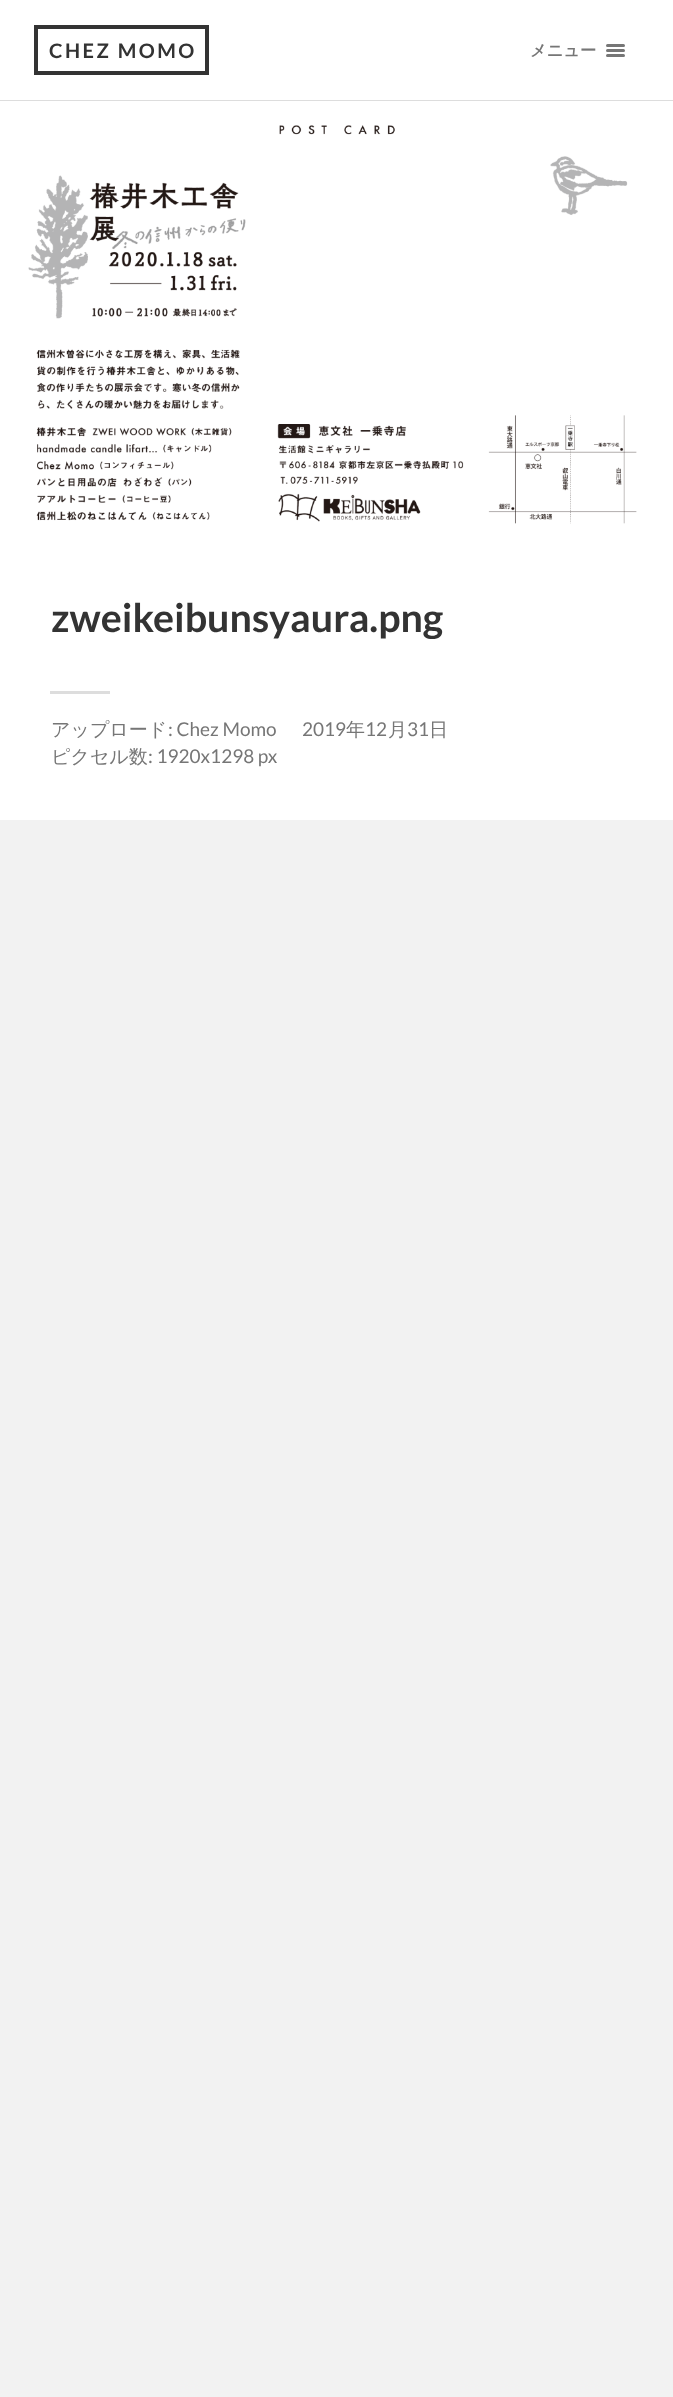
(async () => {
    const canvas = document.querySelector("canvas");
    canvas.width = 673;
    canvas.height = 2397;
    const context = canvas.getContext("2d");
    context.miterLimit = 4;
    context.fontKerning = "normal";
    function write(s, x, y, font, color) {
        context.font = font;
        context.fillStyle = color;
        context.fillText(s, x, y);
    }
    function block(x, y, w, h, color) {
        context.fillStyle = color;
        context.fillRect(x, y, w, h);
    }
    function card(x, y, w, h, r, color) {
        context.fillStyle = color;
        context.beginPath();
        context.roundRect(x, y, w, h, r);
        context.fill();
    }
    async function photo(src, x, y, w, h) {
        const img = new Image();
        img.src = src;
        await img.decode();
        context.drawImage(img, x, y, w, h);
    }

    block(0, 0, 673, 2397, "rgb(242, 242, 242)");
    block(0, 0, 673, 100, "rgb(255, 255, 255)");
    block(0, 100, 673, 1, "rgb(221, 221, 221)");
    context.strokeStyle = "rgb(51, 51, 51)";
    context.lineWidth = 4;
    context.strokeRect(36, 27, 171, 46);
    context.letterSpacing = "2.5px";
    write("CHEZ MOMO", 49, 58, "bold 20px Lato", "rgb(51, 51, 51)");
    context.letterSpacing = "0px";
    write("メニュー", 530, 56, "bold 16.25px WenQuanYi Zen Hei", "rgb(118, 118, 118)");
    card(606, 44, 19, 3, 1.5, "rgb(118, 118, 118)");
    card(606, 49, 19, 3, 1.5, "rgb(118, 118, 118)");
    card(606, 54, 19, 3, 1.5, "rgb(118, 118, 118)");
    block(0, 101, 673, 719, "rgb(255, 255, 255)");
    await photo("media/1.png", 28, 125, 609, 399);
    write("zweikeibunsyaura.png", 51, 632, "bold 39.4px Lato", "rgb(51, 51, 51)");
    block(50, 691, 60, 3, "rgb(221, 221, 221)");
    write("アップロード", 51, 736, "500 19px WenQuanYi Zen Hei", "rgb(118, 118, 118)");
    write(": Chez Momo", 168, 736, "19px Lato", "rgb(118, 118, 118)");
    write("2019", 302, 736, "19px Lato", "rgb(118, 118, 118)");
    write("年", 346, 736, "500 19px WenQuanYi Zen Hei", "rgb(118, 118, 118)");
    write("12", 365, 736, "19px Lato", "rgb(118, 118, 118)");
    write("月", 388, 736, "500 19px WenQuanYi Zen Hei", "rgb(118, 118, 118)");
    write("31", 407, 736, "19px Lato", "rgb(118, 118, 118)");
    write("日", 429, 736, "500 19px WenQuanYi Zen Hei", "rgb(118, 118, 118)");
    write("ピクセル数", 51, 763, "500 19px WenQuanYi Zen Hei", "rgb(118, 118, 118)");
    write(": 1920x1298 px", 148, 763, "19px Lato", "rgb(118, 118, 118)");
})();
